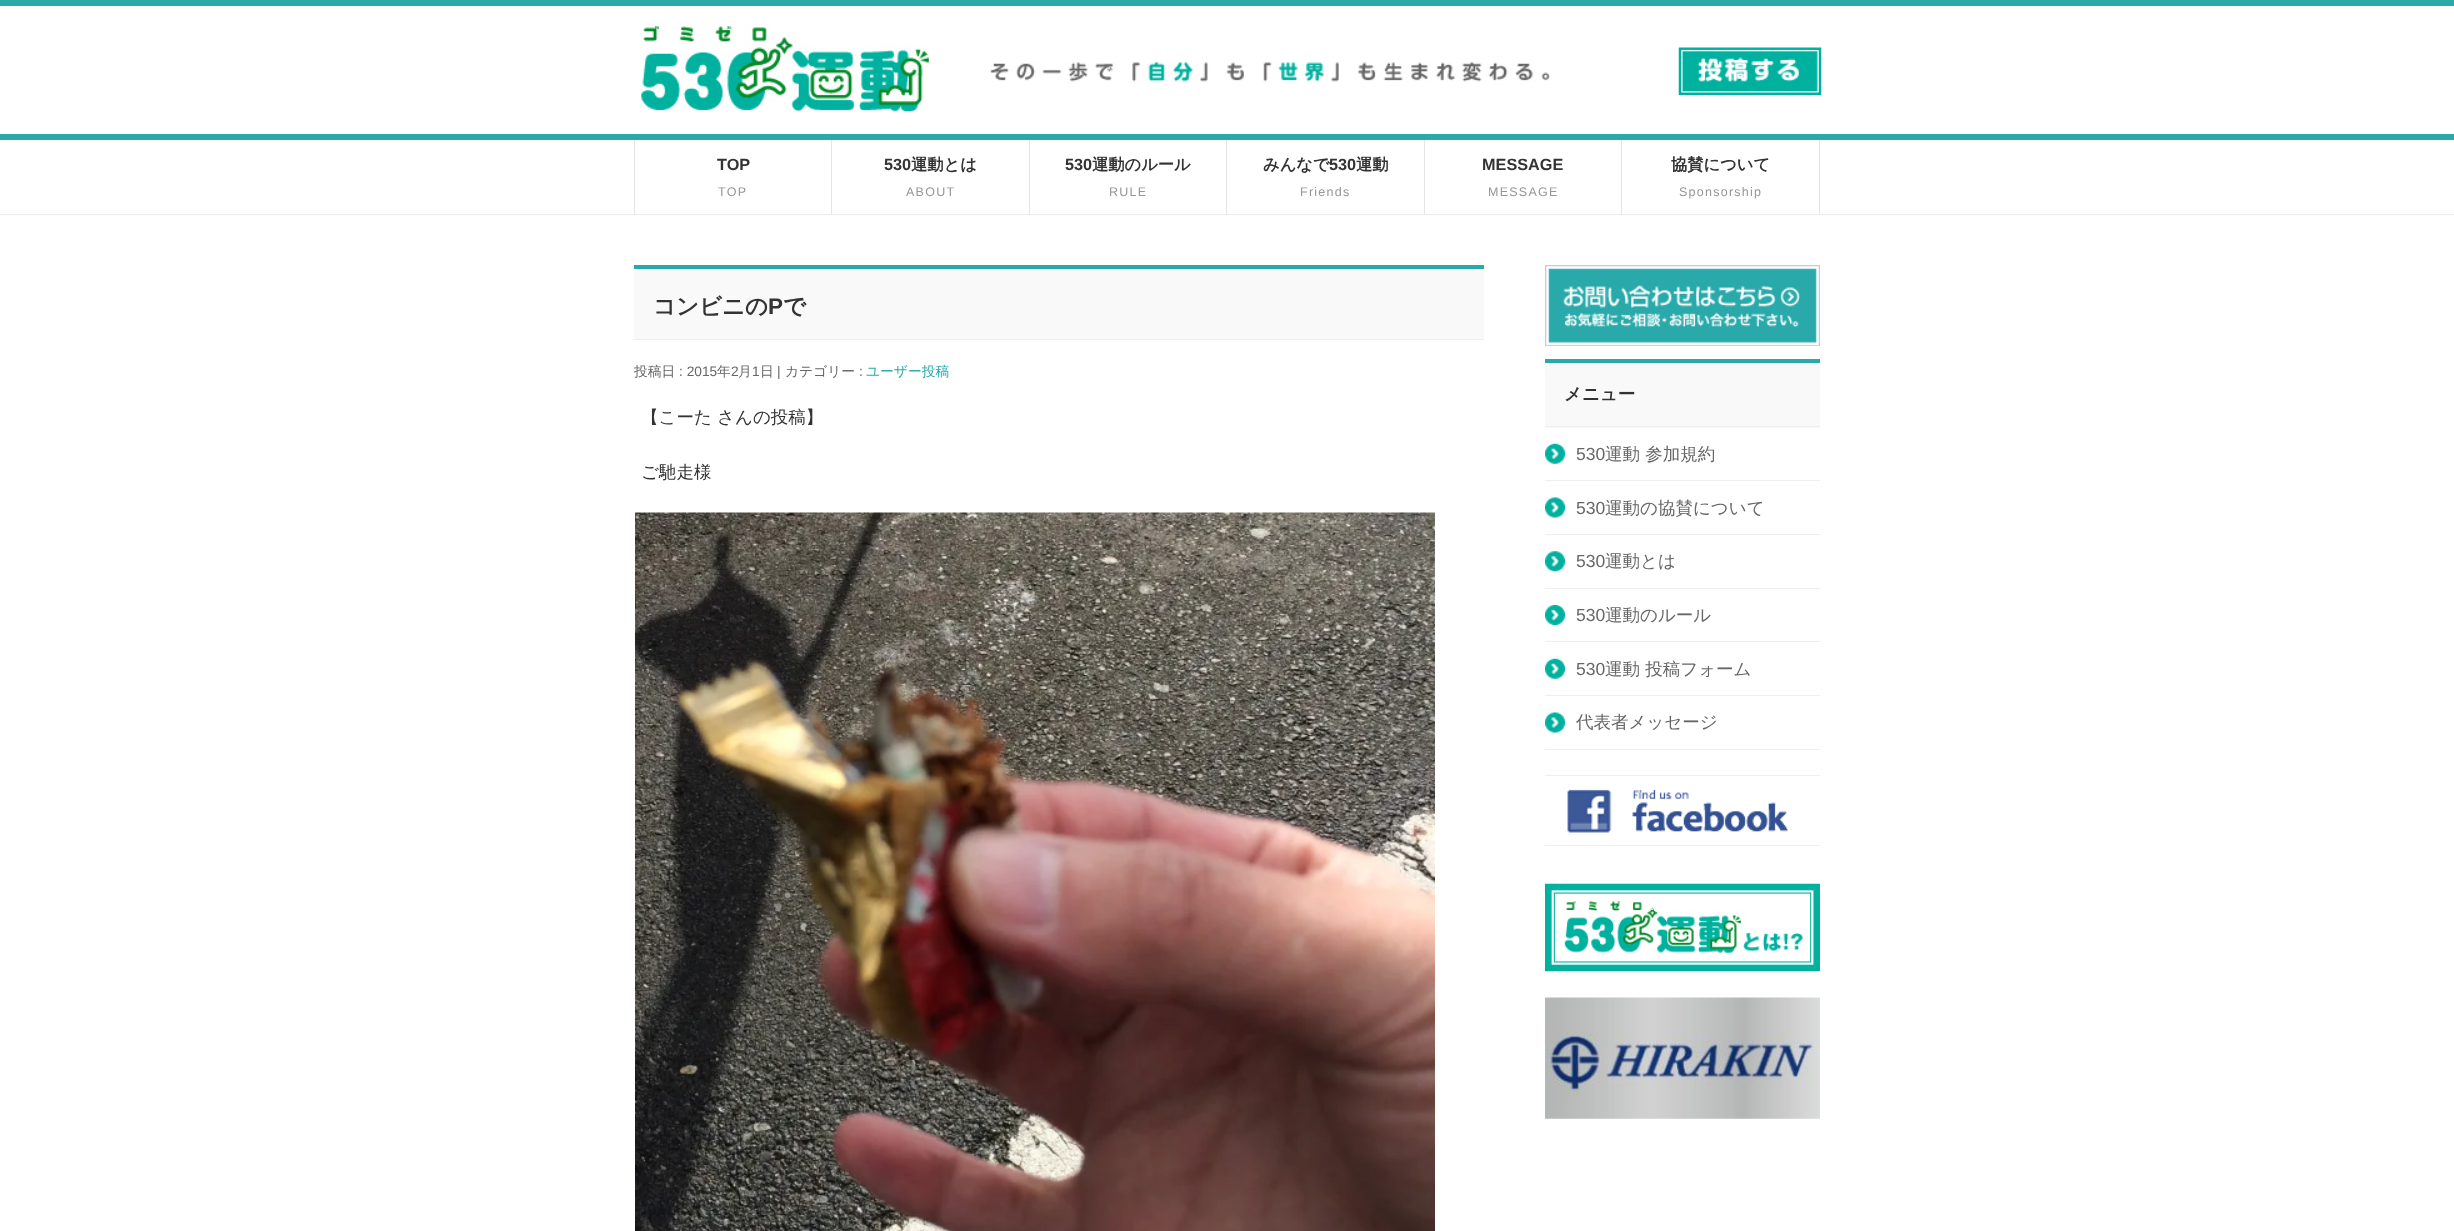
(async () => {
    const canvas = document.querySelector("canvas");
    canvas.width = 2454;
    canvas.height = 1231;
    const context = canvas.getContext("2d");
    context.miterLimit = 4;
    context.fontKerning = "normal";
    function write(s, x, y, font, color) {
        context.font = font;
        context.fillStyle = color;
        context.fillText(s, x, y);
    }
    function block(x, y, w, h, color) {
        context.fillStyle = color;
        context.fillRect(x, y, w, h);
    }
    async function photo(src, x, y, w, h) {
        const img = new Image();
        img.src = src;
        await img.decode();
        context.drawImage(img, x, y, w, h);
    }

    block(0, 0, 2454, 1231, "rgb(255, 255, 255)");
    block(0, 0, 2454, 6, "rgb(41, 169, 170)");
    await photo("media/1.png", 641, 24, 288, 88);
    await photo("media/2.png", 990, 62, 560, 20);
    await photo("media/3.png", 1678, 47, 144, 48);
    block(0, 134, 2454, 6, "rgb(41, 169, 170)");
    block(0, 214, 2454, 1, "rgb(236, 236, 236)");
    block(634, 140, 1, 74, "rgb(229, 229, 229)");
    block(831, 140, 1, 74, "rgb(229, 229, 229)");
    write("TOP", 717, 170, "bold 16.25px Liberation Sans", "rgb(51, 51, 51)");
    context.letterSpacing = "1.25px";
    write("TOP", 718, 196, "12.5px Liberation Sans", "rgb(150, 150, 150)");
    block(1029, 140, 1, 74, "rgb(229, 229, 229)");
    context.letterSpacing = "0px";
    write("530", 884, 170, "bold 16.25px Liberation Sans", "rgb(51, 51, 51)");
    write("運動とは", 911, 170, "bold 16.25px WenQuanYi Zen Hei", "rgb(51, 51, 51)");
    context.letterSpacing = "1.25px";
    write("ABOUT", 906, 196, "12.5px Liberation Sans", "rgb(150, 150, 150)");
    block(1226, 140, 1, 74, "rgb(229, 229, 229)");
    context.letterSpacing = "0px";
    write("530", 1065, 170, "bold 16.25px Liberation Sans", "rgb(51, 51, 51)");
    write("運動のルール", 1092, 170, "bold 16.25px WenQuanYi Zen Hei", "rgb(51, 51, 51)");
    context.letterSpacing = "1.25px";
    write("RULE", 1109, 196, "12.5px Liberation Sans", "rgb(150, 150, 150)");
    block(1424, 140, 1, 74, "rgb(229, 229, 229)");
    context.letterSpacing = "0px";
    write("みんなで", 1263, 170, "bold 16.25px WenQuanYi Zen Hei", "rgb(51, 51, 51)");
    write("530", 1329, 170, "bold 16.25px Liberation Sans", "rgb(51, 51, 51)");
    write("運動", 1356, 170, "bold 16.25px WenQuanYi Zen Hei", "rgb(51, 51, 51)");
    context.letterSpacing = "1.25px";
    write("Friends", 1300, 196, "12.5px Liberation Sans", "rgb(150, 150, 150)");
    block(1621, 140, 1, 74, "rgb(229, 229, 229)");
    context.letterSpacing = "0px";
    write("MESSAGE", 1482, 170, "bold 16.25px Liberation Sans", "rgb(51, 51, 51)");
    context.letterSpacing = "1.25px";
    write("MESSAGE", 1488, 196, "12.5px Liberation Sans", "rgb(150, 150, 150)");
    block(1819, 140, 1, 74, "rgb(229, 229, 229)");
    context.letterSpacing = "0px";
    write("協賛について", 1671, 170, "bold 16.25px WenQuanYi Zen Hei", "rgb(51, 51, 51)");
    context.letterSpacing = "1.25px";
    write("Sponsorship", 1679, 196, "12.5px Liberation Sans", "rgb(150, 150, 150)");
    block(634, 269, 850, 70, "rgb(249, 249, 249)");
    await photo("media/4.png", 634, 269, 850, 1);
    block(634, 265, 850, 4, "rgb(41, 169, 170)");
    block(634, 339, 850, 1, "rgb(238, 238, 238)");
    context.letterSpacing = "0px";
    write("コンビニの", 653, 314, "bold 22.5px WenQuanYi Zen Hei", "rgb(51, 51, 51)");
    write("P", 768, 314, "bold 22.5px Liberation Sans", "rgb(51, 51, 51)");
    write("で", 783, 314, "bold 22.5px WenQuanYi Zen Hei", "rgb(51, 51, 51)");
    write("投稿日", 634, 376, "500 13.75px WenQuanYi Zen Hei", "rgb(102, 102, 102)");
    write(": 2015", 679, 376, "13.75px Liberation Sans", "rgb(102, 102, 102)");
    write("年", 717, 376, "500 13.75px WenQuanYi Zen Hei", "rgb(102, 102, 102)");
    write("2", 731, 376, "13.75px Liberation Sans", "rgb(102, 102, 102)");
    write("月", 738, 376, "500 13.75px WenQuanYi Zen Hei", "rgb(102, 102, 102)");
    write("1", 752, 376, "13.75px Liberation Sans", "rgb(102, 102, 102)");
    write("日", 760, 376, "500 13.75px WenQuanYi Zen Hei", "rgb(102, 102, 102)");
    write("|", 777, 376, "13.75px Liberation Sans", "rgb(102, 102, 102)");
    write("カテゴリー", 785, 376, "500 13.75px WenQuanYi Zen Hei", "rgb(102, 102, 102)");
    write(":", 859, 376, "13.75px Liberation Sans", "rgb(102, 102, 102)");
    write("ユーザー投稿", 866, 376, "500 13.75px WenQuanYi Zen Hei", "rgb(41, 169, 170)");
    write("【こーた さんの投稿】", 641, 423, "500 17.5px WenQuanYi Zen Hei", "rgb(51, 51, 51)");
    write("ご馳走様", 641, 478, "500 17.5px WenQuanYi Zen Hei", "rgb(51, 51, 51)");
    await photo("media/5.png", 635, 512, 800, 719);
    block(1548, 268, 269, 75, "rgb(41, 169, 170)");
    await photo("media/6.png", 1545, 265, 275, 81);
    block(1545, 364, 275, 64, "rgb(249, 249, 249)");
    block(1545, 359, 275, 4, "rgb(41, 169, 170)");
    block(1545, 426, 275, 1, "rgb(238, 238, 238)");
    write("メニュー", 1564, 400, "bold 17.5px WenQuanYi Zen Hei", "rgb(51, 51, 51)");
    block(1545, 480, 275, 1, "rgb(238, 238, 238)");
    await photo("media/7.png", 1545, 443, 20, 21);
    write("530", 1576, 460, "17.5px Liberation Sans", "rgb(102, 102, 102)");
    write("運動 参加規約", 1605, 460, "500 17.5px WenQuanYi Zen Hei", "rgb(102, 102, 102)");
    block(1545, 534, 275, 1, "rgb(238, 238, 238)");
    await photo("media/8.png", 1545, 497, 20, 21);
    write("530", 1576, 514, "17.5px Liberation Sans", "rgb(102, 102, 102)");
    write("運動の協賛について", 1605, 514, "500 17.5px WenQuanYi Zen Hei", "rgb(102, 102, 102)");
    block(1545, 588, 275, 1, "rgb(238, 238, 238)");
    await photo("media/9.png", 1545, 551, 20, 21);
    write("530", 1576, 567, "17.5px Liberation Sans", "rgb(102, 102, 102)");
    write("運動とは", 1605, 567, "500 17.5px WenQuanYi Zen Hei", "rgb(102, 102, 102)");
    block(1545, 641, 275, 1, "rgb(238, 238, 238)");
    await photo("media/10.png", 1545, 605, 20, 20);
    write("530", 1576, 621, "17.5px Liberation Sans", "rgb(102, 102, 102)");
    write("運動のルール", 1605, 621, "500 17.5px WenQuanYi Zen Hei", "rgb(102, 102, 102)");
    block(1545, 695, 275, 1, "rgb(238, 238, 238)");
    await photo("media/7.png", 1545, 658, 20, 21);
    write("530", 1576, 675, "17.5px Liberation Sans", "rgb(102, 102, 102)");
    write("運動 投稿フォーム", 1605, 675, "500 17.5px WenQuanYi Zen Hei", "rgb(102, 102, 102)");
    block(1545, 749, 275, 1, "rgb(238, 238, 238)");
    await photo("media/8.png", 1545, 712, 20, 21);
    write("代表者メッセージ", 1576, 728, "500 17.5px WenQuanYi Zen Hei", "rgb(102, 102, 102)");
    block(1545, 775, 275, 1, "rgb(238, 238, 238)");
    block(1545, 845, 275, 1, "rgb(238, 238, 238)");
    await photo("media/11.png", 1567, 789, 221, 44);
    await photo("media/12.png", 1545, 883, 275, 89);
    await photo("media/13.png", 1545, 997, 275, 122);
})();
